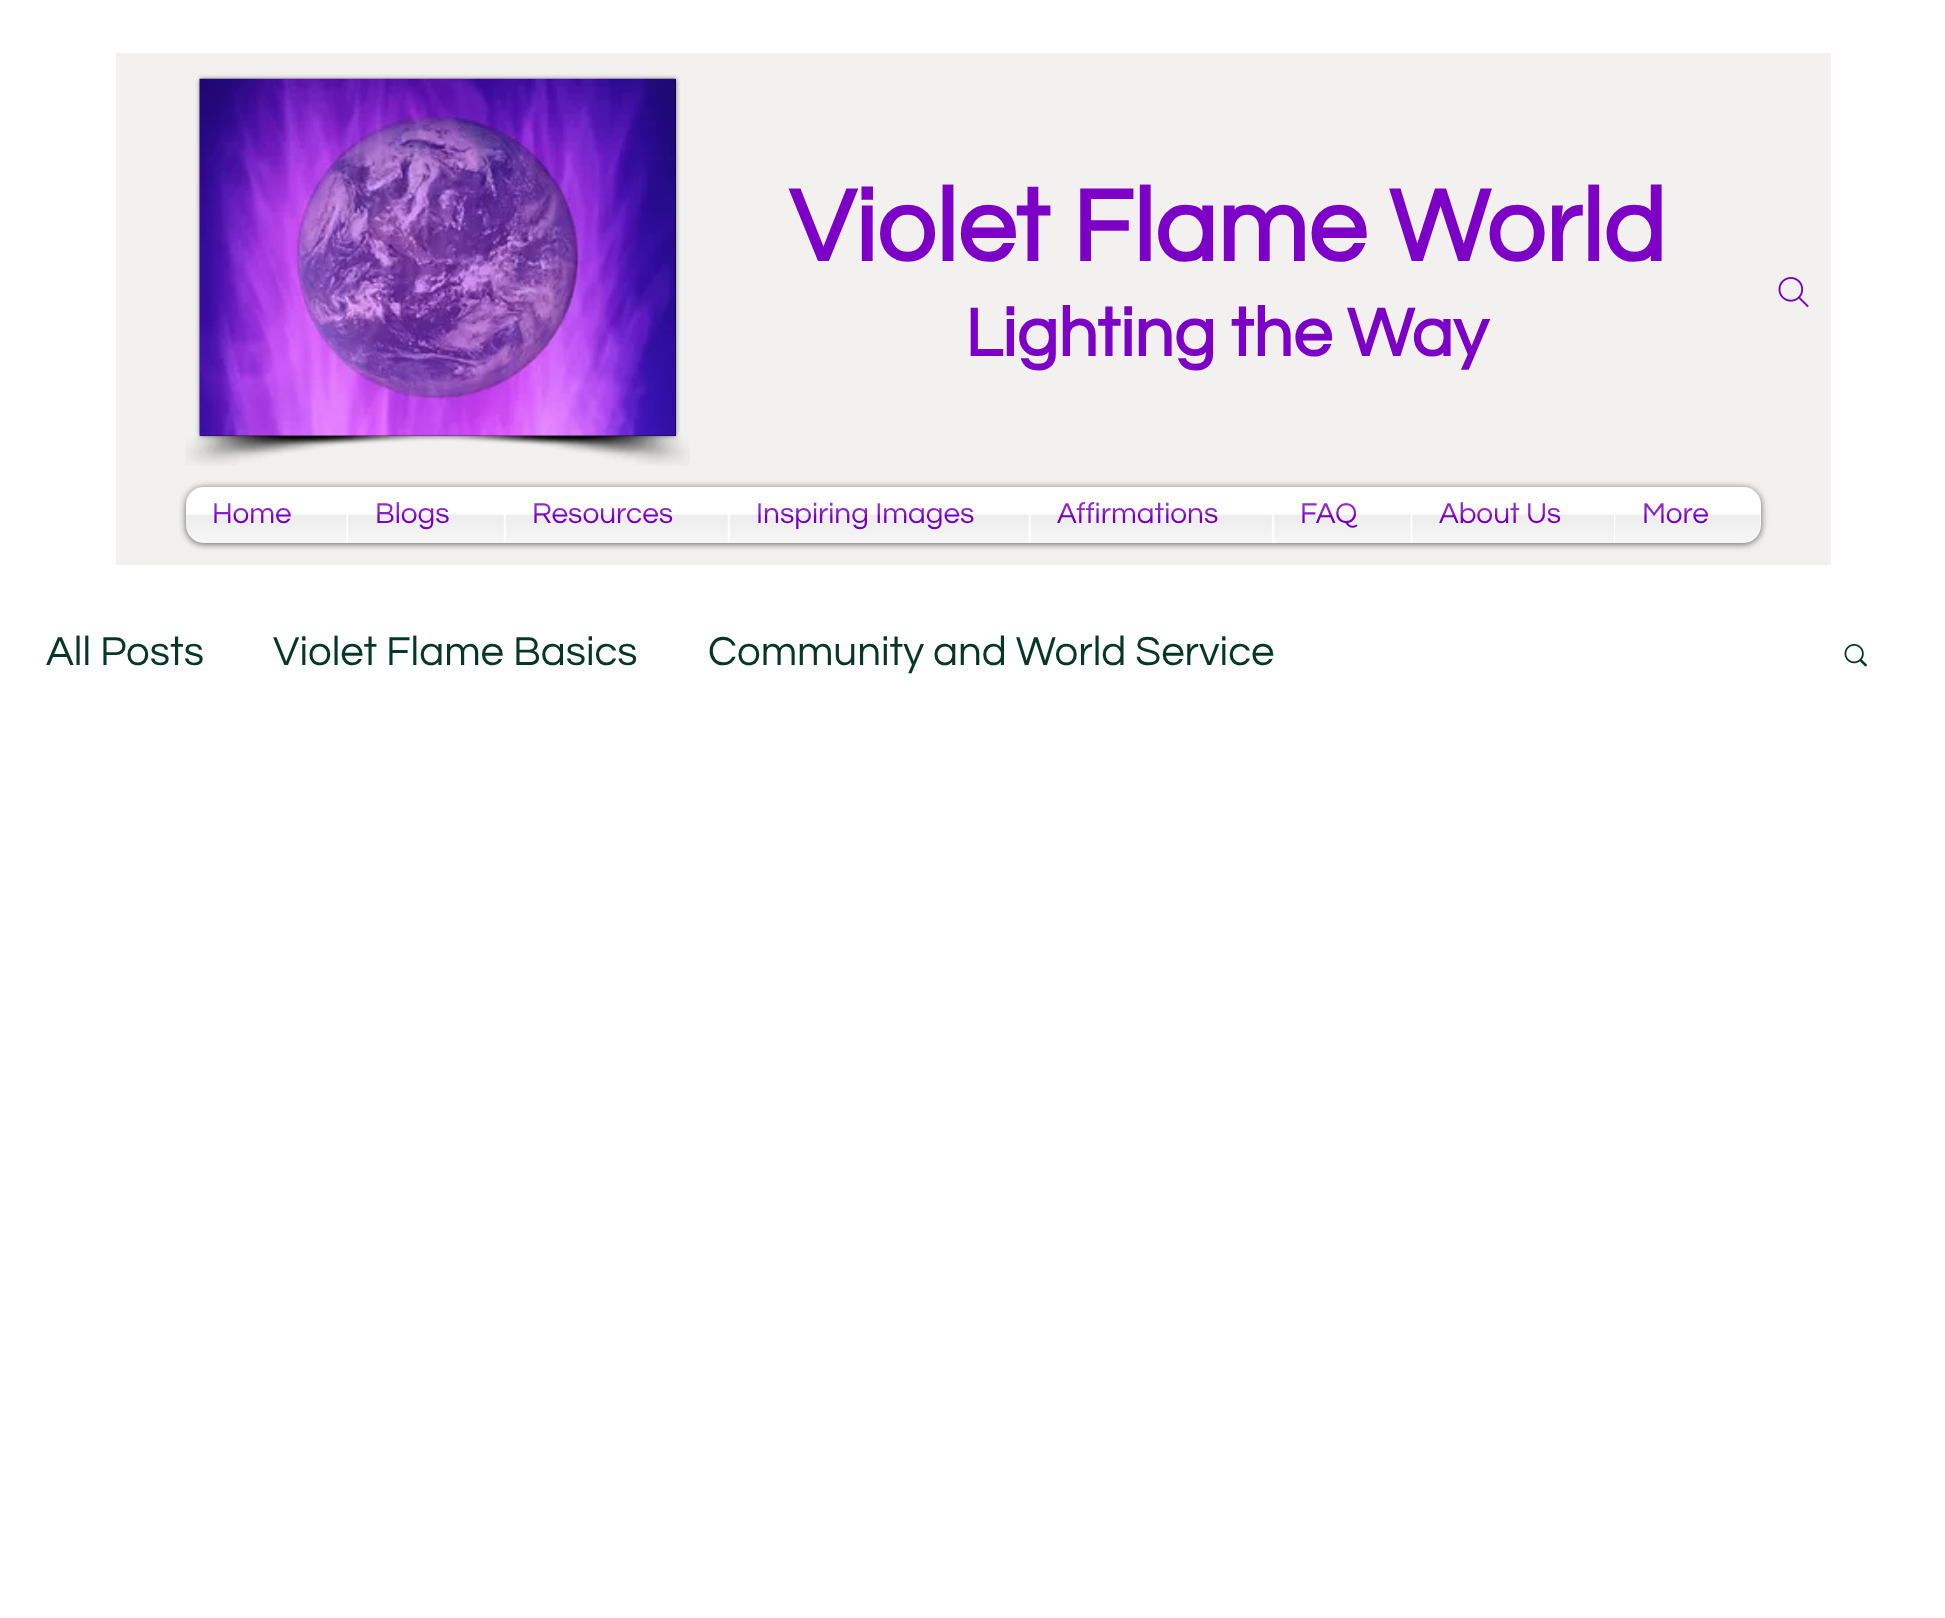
(async () => {
    const canvas = document.querySelector("canvas");
    canvas.width = 1945;
    canvas.height = 1618;
    const context = canvas.getContext("2d");
    context.miterLimit = 4;
    context.fontKerning = "normal";
    function write(s, x, y, font, color) {
        context.font = font;
        context.fillStyle = color;
        context.fillText(s, x, y);
    }
    function block(x, y, w, h, color) {
        context.fillStyle = color;
        context.fillRect(x, y, w, h);
    }
    async function photo(src, x, y, w, h) {
        const img = new Image();
        img.src = src;
        await img.decode();
        context.drawImage(img, x, y, w, h);
    }

    block(0, 0, 1945, 1618, "rgb(255, 255, 255)");
    block(116, 53, 1715, 512, "rgb(242, 241, 240)");
    context.fillStyle = "rgba(0, 0, 0, 0.5)";
    context.filter = "blur(2.5px)";
    context.beginPath();
    context.rect(200, 79, 476, 357);
    context.fill();
    context.filter = "none";
    block(200, 79, 476, 357, "rgb(0, 0, 0)");
    await photo("media/1.png", 199, 78, 477, 358);
    await photo("media/2.png", 185, 435, 268, 31);
    await photo("media/3.png", 422, 435, 268, 31);
    write("Violet Flame World", 789, 261, "bold 105px Questrial", "rgb(125, 0, 199)");
    write("Lighting the Way", 965, 356, "bold 70px Questrial", "rgb(125, 0, 199)");
    context.fillStyle = "rgba(0, 0, 0, 0.6)";
    context.filter = "blur(3.5px)";
    context.beginPath();
    context.roundRect(186, 488, 1575, 56, 18);
    context.fill();
    context.filter = "none";
    await photo("media/4.png", 186, 487, 1575, 56);
    context.fillStyle = "rgb(255, 255, 255)";
    context.beginPath();
    context.roundRect(186, 487, 161, 56, [18, 0, 0, 18]);
    context.fill();
    write("Home", 212, 523, "29.75px Questrial", "rgb(125, 0, 199)");
    await photo("media/5.png", 186, 503, 161, 40);
    block(347, 487, 1267, 56, "rgb(255, 255, 255)");
    write("Blogs", 375, 523, "29.75px Questrial", "rgb(125, 0, 199)");
    await photo("media/6.png", 348, 502, 156, 41);
    write("Resources", 532, 523, "29.75px Questrial", "rgb(125, 0, 199)");
    await photo("media/7.png", 505, 503, 223, 40);
    write("Inspiring Images", 756, 523, "29.75px Questrial", "rgb(125, 0, 199)");
    await photo("media/8.png", 729, 502, 300, 41);
    write("Affirmations", 1057, 523, "29.75px Questrial", "rgb(125, 0, 199)");
    await photo("media/9.png", 1030, 502, 242, 41);
    write("FAQ", 1300, 523, "29.75px Questrial", "rgb(125, 0, 199)");
    await photo("media/10.png", 1274, 503, 137, 40);
    write("About Us", 1439, 523, "29.75px Questrial", "rgb(125, 0, 199)");
    await photo("media/11.png", 1412, 502, 202, 41);
    context.fillStyle = "rgb(255, 255, 255)";
    context.beginPath();
    context.roundRect(1614, 487, 147, 56, [0, 18, 18, 0]);
    context.fill();
    write("More", 1642, 523, "29.75px Questrial", "rgb(125, 0, 199)");
    await photo("media/12.png", 1615, 487, 146, 56);
    await photo("media/13.png", 1778, 277, 31, 31);
    write("All Posts", 46, 665, "42px Questrial", "rgb(6, 54, 39)");
    write("Violet Flame Basics", 273, 665, "42px Questrial", "rgb(6, 54, 39)");
    write("Community and World Service", 708, 665, "42px Questrial", "rgb(6, 54, 39)");
    await photo("media/14.png", 1844, 644, 23, 23);
})();
